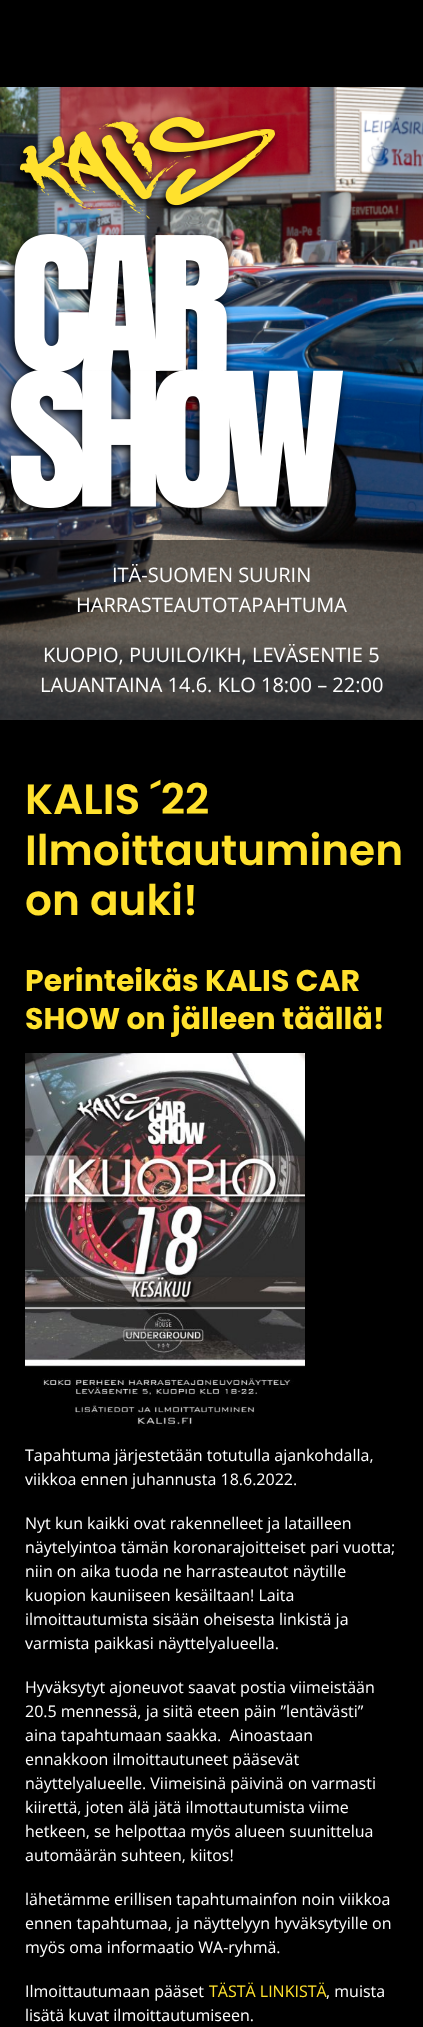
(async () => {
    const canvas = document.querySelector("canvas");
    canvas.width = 423;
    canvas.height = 2027;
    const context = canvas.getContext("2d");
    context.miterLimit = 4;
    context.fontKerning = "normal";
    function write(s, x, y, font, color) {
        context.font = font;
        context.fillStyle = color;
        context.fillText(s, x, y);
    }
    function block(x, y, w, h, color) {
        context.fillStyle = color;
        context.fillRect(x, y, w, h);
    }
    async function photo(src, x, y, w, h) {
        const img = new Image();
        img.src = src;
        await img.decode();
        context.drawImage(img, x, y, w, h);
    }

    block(0, 0, 423, 2027, "rgb(0, 0, 0)");
    await photo("media/1.png", 0, 87, 423, 633);
    await photo("media/2.png", 1, 113, 347, 404);
    block(0, 540, 423, 180, "rgba(0, 0, 0, 0.54)");
    write("ITÄ-SUOMEN SUURIN", 112, 582, "20px Open Sans", "rgb(255, 255, 255)");
    write("HARRASTEAUTOTAPAHTUMA", 76, 612, "20px Open Sans", "rgb(255, 255, 255)");
    write("KUOPIO, PUUILO/IKH, LEVÄSENTIE 5", 43, 662, "20px Open Sans", "rgb(255, 255, 255)");
    write("LAUANTAINA 14.6. KLO 18:00 – 22:00", 40, 692, "20px Open Sans", "rgb(255, 255, 255)");
    write("KALIS ´22", 25, 814, "600 42.25px Poppins", "rgb(255, 225, 45)");
    write("Ilmoittautuminen", 25, 865, "600 42.25px Poppins", "rgb(255, 225, 45)");
    write("on auki!", 25, 915, "600 42.25px Poppins", "rgb(255, 225, 45)");
    write("Perinteikäs KALIS CAR", 25, 991, "bold 29.9px Poppins", "rgb(255, 225, 45)");
    write("SHOW on jälleen täällä!", 25, 1029, "bold 29.9px Poppins", "rgb(255, 225, 45)");
    await photo("media/3.png", 25, 1053, 280, 375);
    write("Tapahtuma järjestetään totutulla ajankohdalla,", 25, 1461, "16px Open Sans", "rgb(255, 255, 255)");
    write("viikkoa ennen juhannusta 18.6.2022.", 25, 1485, "16px Open Sans", "rgb(255, 255, 255)");
    write("Nyt kun kaikki ovat rakennelleet ja latailleen", 25, 1529, "16px Open Sans", "rgb(255, 255, 255)");
    write("näytelyintoa tämän koronarajoitteiset pari vuotta;", 25, 1553, "16px Open Sans", "rgb(255, 255, 255)");
    write("niin on aika tuoda ne harrasteautot näytille", 25, 1577, "16px Open Sans", "rgb(255, 255, 255)");
    write("kuopion kauniiseen kesäiltaan! Laita", 25, 1601, "16px Open Sans", "rgb(255, 255, 255)");
    write("ilmoittautumista sisään oheisesta linkistä ja", 25, 1625, "16px Open Sans", "rgb(255, 255, 255)");
    write("varmista paikkasi näyttelyalueella.", 25, 1649, "16px Open Sans", "rgb(255, 255, 255)");
    write("Hyväksytyt ajoneuvot saavat postia viimeistään", 25, 1693, "16px Open Sans", "rgb(255, 255, 255)");
    write("20.5 mennessä, ja siitä eteen päin ”lentävästi”", 25, 1717, "16px Open Sans", "rgb(255, 255, 255)");
    write("aina tapahtumaan saakka.  Ainoastaan", 25, 1741, "16px Open Sans", "rgb(255, 255, 255)");
    write("ennakkoon ilmoittautuneet pääsevät", 25, 1765, "16px Open Sans", "rgb(255, 255, 255)");
    write("näyttelyalueelle. Viimeisinä päivinä on varmasti", 25, 1789, "16px Open Sans", "rgb(255, 255, 255)");
    write("kiirettä, joten älä jätä ilmottautumista viime", 25, 1813, "16px Open Sans", "rgb(255, 255, 255)");
    write("hetkeen, se helpottaa myös alueen suunittelua", 25, 1837, "16px Open Sans", "rgb(255, 255, 255)");
    write("automäärän suhteen, kiitos!", 25, 1861, "16px Open Sans", "rgb(255, 255, 255)");
    write("lähetämme erillisen tapahtumainfon noin viikkoa", 25, 1905, "16px Open Sans", "rgb(255, 255, 255)");
    write("ennen tapahtumaa, ja näyttelyyn hyväksytyille on", 25, 1929, "16px Open Sans", "rgb(255, 255, 255)");
    write("myös oma informaatio WA-ryhmä.", 25, 1953, "16px Open Sans", "rgb(255, 255, 255)");
    write("Ilmoittautumaan pääset", 25, 1997, "16px Open Sans", "rgb(255, 255, 255)");
    write("TÄSTÄ LINKISTÄ", 209, 1997, "16px Open Sans", "rgb(255, 225, 45)");
    write(", muista", 326, 1997, "16px Open Sans", "rgb(255, 255, 255)");
    write("lisätä kuvat ilmoittautumiseen.", 25, 2021, "16px Open Sans", "rgb(255, 255, 255)");
})();
